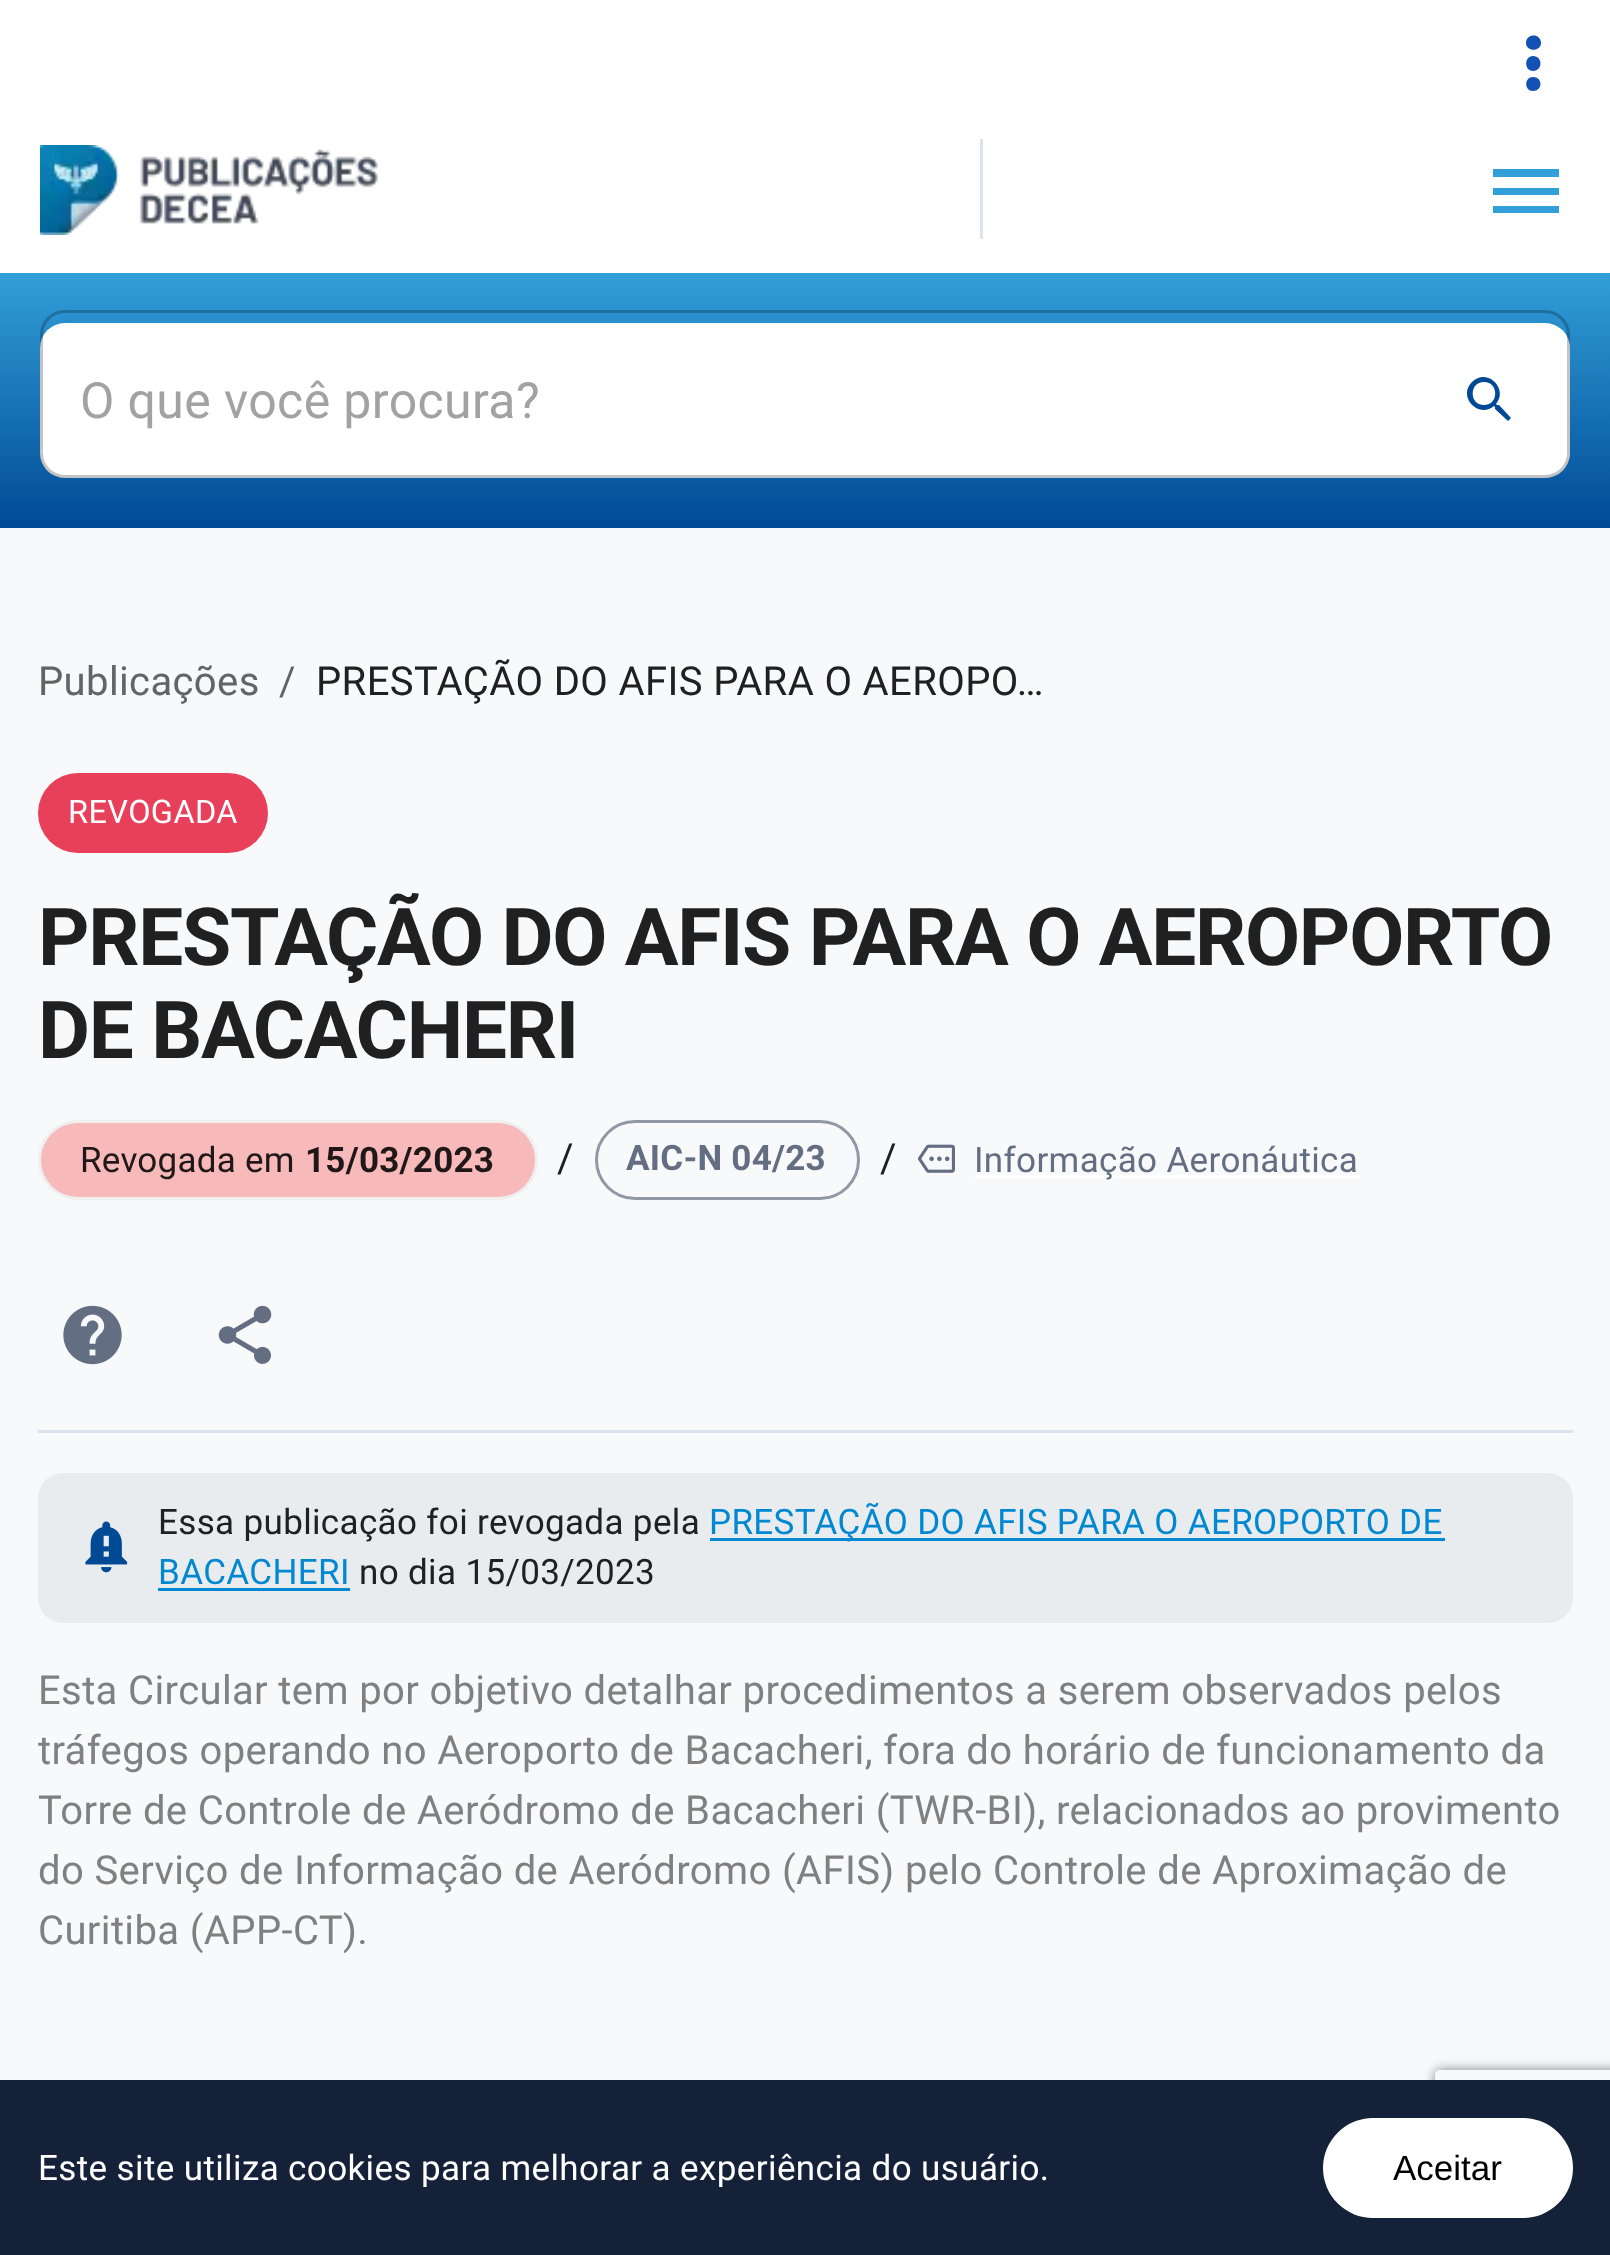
(async () => {
    const canvas = document.querySelector("canvas");
    canvas.width = 1610;
    canvas.height = 2255;
    const context = canvas.getContext("2d");
    context.miterLimit = 4;
    context.fontKerning = "normal";
    function write(s, x, y, font, color) {
        context.font = font;
        context.fillStyle = color;
        context.fillText(s, x, y);
    }
    function block(x, y, w, h, color) {
        context.fillStyle = color;
        context.fillRect(x, y, w, h);
    }
    function card(x, y, w, h, r, color) {
        context.fillStyle = color;
        context.beginPath();
        context.roundRect(x, y, w, h, r);
        context.fill();
    }
    async function photo(src, x, y, w, h) {
        const img = new Image();
        img.src = src;
        await img.decode();
        context.drawImage(img, x, y, w, h);
    }
    let gradient;

    block(0, 0, 1610, 2255, "rgb(248, 249, 250)");
    block(0, 0, 1610, 273, "rgb(255, 255, 255)");
    context.fillStyle = "rgb(19, 81, 180)";
    context.beginPath();
    context.moveTo(1533, 77);
    context.bezierCurveTo(1524, 77, 1524, 91, 1533, 91);
    context.bezierCurveTo(1543, 91, 1543, 77, 1533, 77);
    context.closePath();
    context.moveTo(1533, 56);
    context.bezierCurveTo(1524, 56, 1524, 71, 1533, 71);
    context.bezierCurveTo(1543, 71, 1543, 56, 1533, 56);
    context.closePath();
    context.moveTo(1541, 43);
    context.bezierCurveTo(1541, 33, 1526, 33, 1526, 43);
    context.bezierCurveTo(1526, 52, 1541, 52, 1541, 43);
    context.closePath();
    context.fill();
    await photo("media/1.png", 40, 145, 338, 90);
    block(980, 139, 3, 100, "rgb(220, 227, 240)");
    context.fillStyle = "rgb(50, 159, 217)";
    context.beginPath();
    context.moveTo(1493, 213);
    context.lineTo(1559, 213);
    context.lineTo(1559, 206);
    context.lineTo(1493, 206);
    context.closePath();
    context.moveTo(1493, 195);
    context.lineTo(1559, 195);
    context.lineTo(1559, 188);
    context.lineTo(1493, 188);
    context.closePath();
    context.moveTo(1493, 169);
    context.lineTo(1493, 177);
    context.lineTo(1559, 177);
    context.lineTo(1559, 169);
    context.closePath();
    context.fill();
    gradient = context.createLinearGradient(805, 272, 805, 528);
    gradient.addColorStop(0, "rgb(50, 159, 217)");
    gradient.addColorStop(1, "rgb(0, 74, 149)");
    context.fillStyle = gradient;
    context.fillRect(0, 273, 1610, 255);
    card(40, 323, 1530, 155, 25, "rgb(255, 255, 255)");
    card(1410, 325, 160, 150, 25, "rgb(255, 255, 255)");
    context.fillStyle = "rgb(0, 74, 149)";
    context.beginPath();
    context.moveTo(1499, 405);
    context.lineTo(1497, 405);
    context.lineTo(1496, 404);
    context.bezierCurveTo(1509, 389, 1487, 367, 1472, 382);
    context.bezierCurveTo(1457, 397, 1479, 419, 1494, 406);
    context.lineTo(1495, 407);
    context.lineTo(1495, 409);
    context.lineTo(1508, 421);
    context.lineTo(1511, 418);
    context.closePath();
    context.moveTo(1484, 405);
    context.bezierCurveTo(1469, 405, 1469, 382, 1484, 382);
    context.bezierCurveTo(1499, 382, 1499, 405, 1484, 405);
    context.closePath();
    context.fill();
    context.beginPath();
    context.roundRect(41.5, 311.5, 1527, 165, 23.5);
    context.strokeStyle = "rgba(0, 0, 0, 0.23)";
    context.lineWidth = 3;
    context.stroke();
    context.letterSpacing = "0.38px";
    write("O que você procura?", 80, 418, "50px Roboto", "rgb(162, 162, 162)");
    write("Publicações", 38, 695, "40px Roboto", "rgb(99, 100, 100)");
    write("/", 279, 695, "40px Roboto", "rgb(99, 100, 100)");
    write("PRESTAÇÃO DO AFIS PARA O AEROPO…", 316, 695, "40px Roboto", "rgb(32, 32, 33)");
    card(38, 773, 230, 80, 40, "rgb(232, 63, 91)");
    write("REVOGADA", 68, 823, "32.5px Roboto", "rgb(255, 255, 255)");
    context.letterSpacing = "-1.25px";
    write("PRESTAÇÃO DO AFIS PARA O AEROPORTO", 38, 965, "bold 80px Roboto", "rgb(32, 32, 33)");
    write("DE BACACHERI", 38, 1058, "bold 80px Roboto", "rgb(32, 32, 33)");
    context.fillStyle = "rgb(247, 185, 185)";
    context.beginPath();
    context.roundRect(39.5, 1121.5, 497, 77, 38.5);
    context.fill();
    context.strokeStyle = "rgb(239, 239, 239)";
    context.stroke();
    context.letterSpacing = "0.25px";
    write("Revogada em", 80, 1172, "35px Roboto", "rgb(32, 24, 24)");
    write("15/03/2023", 305, 1172, "bold 35px Roboto", "rgb(32, 24, 24)");
    context.letterSpacing = "0.38px";
    write("/", 557, 1172, "40px Roboto", "rgb(32, 32, 33)");
    context.beginPath();
    context.roundRect(596.5, 1121.5, 262, 77, 38.5);
    context.strokeStyle = "rgb(144, 152, 166)";
    context.stroke();
    context.letterSpacing = "0.25px";
    write("AIC-N 04/23", 626, 1170, "bold 35px Roboto", "rgb(100, 110, 130)");
    context.letterSpacing = "0.38px";
    write("/", 880, 1172, "40px Roboto", "rgb(32, 32, 33)");
    await photo("media/2.png", 918, 1144, 37, 29);
    block(975, 1175, 385, 3, "rgb(255, 255, 255)");
    context.letterSpacing = "0.35px";
    write("Informação Aeronáutica", 974, 1172, "35px Roboto", "rgb(100, 110, 130)");
    block(38, 1430, 1535, 3, "rgb(220, 227, 240)");
    await photo("media/3.png", 63, 1305, 59, 60);
    await photo("media/4.png", 218, 1305, 54, 59);
    card(38, 1473, 1535, 150, 25, "rgb(233, 236, 239)");
    await photo("media/5.png", 85, 1521, 43, 52);
    write("Essa publicação foi revogada pela", 158, 1534, "35px Roboto", "rgb(32, 32, 33)");
    block(710, 1538, 735, 3, "rgb(2, 136, 209)");
    write("PRESTAÇÃO DO AFIS PARA O AEROPORTO DE", 709, 1534, "35px Roboto", "rgb(2, 136, 209)");
    write("BACACHERI", 158, 1584, "35px Roboto", "rgb(2, 136, 209)");
    block(158, 1588, 192, 3, "rgb(2, 136, 209)");
    write("no dia 15/03/2023", 359, 1584, "35px Roboto", "rgb(32, 32, 33)");
    context.letterSpacing = "0.38px";
    write("Esta Circular tem por objetivo detalhar procedimentos a serem observados pelos", 38, 1704, "40px Roboto", "rgb(128, 128, 128)");
    write("tráfegos operando no Aeroporto de Bacacheri, fora do horário de funcionamento da", 38, 1764, "40px Roboto", "rgb(128, 128, 128)");
    write("Torre de Controle de Aeródromo de Bacacheri (TWR-BI), relacionados ao provimento", 38, 1824, "40px Roboto", "rgb(128, 128, 128)");
    write("do Serviço de Informação de Aeródromo (AFIS) pelo Controle de Aproximação de", 38, 1884, "40px Roboto", "rgb(128, 128, 128)");
    write("Curitiba (APP-CT).", 38, 1944, "40px Roboto", "rgb(128, 128, 128)");
    context.save();
    context.beginPath();
    context.moveTo(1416, 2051);
    context.lineTo(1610, 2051);
    context.lineTo(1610, 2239);
    context.lineTo(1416, 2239);
    context.closePath();
    context.moveTo(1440, 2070);
    context.lineTo(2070, 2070);
    context.bezierCurveTo(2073, 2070, 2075, 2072, 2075, 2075);
    context.lineTo(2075, 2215);
    context.bezierCurveTo(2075, 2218, 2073, 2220, 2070, 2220);
    context.lineTo(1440, 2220);
    context.bezierCurveTo(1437, 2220, 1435, 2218, 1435, 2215);
    context.lineTo(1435, 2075);
    context.bezierCurveTo(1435, 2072, 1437, 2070, 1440, 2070);
    context.closePath();
    context.clip("evenodd");
    context.filter = "blur(6px)";
    context.beginPath();
    context.roundRect(1435, 2070, 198, 150, 5);
    context.fill();
    context.filter = "none";
    context.restore();
    block(0, 2080, 1610, 175, "rgb(21, 33, 56)");
    write("Este site utiliza cookies para melhorar a experiência do usuário.", 38, 2180, "35px Roboto", "rgb(255, 255, 255)");
    card(1323, 2118, 250, 100, 50, "rgb(255, 255, 255)");
    context.letterSpacing = "0px";
    write("Aceitar", 1393, 2180, "35px Liberation Sans", "rgb(0, 0, 0)");
})();
